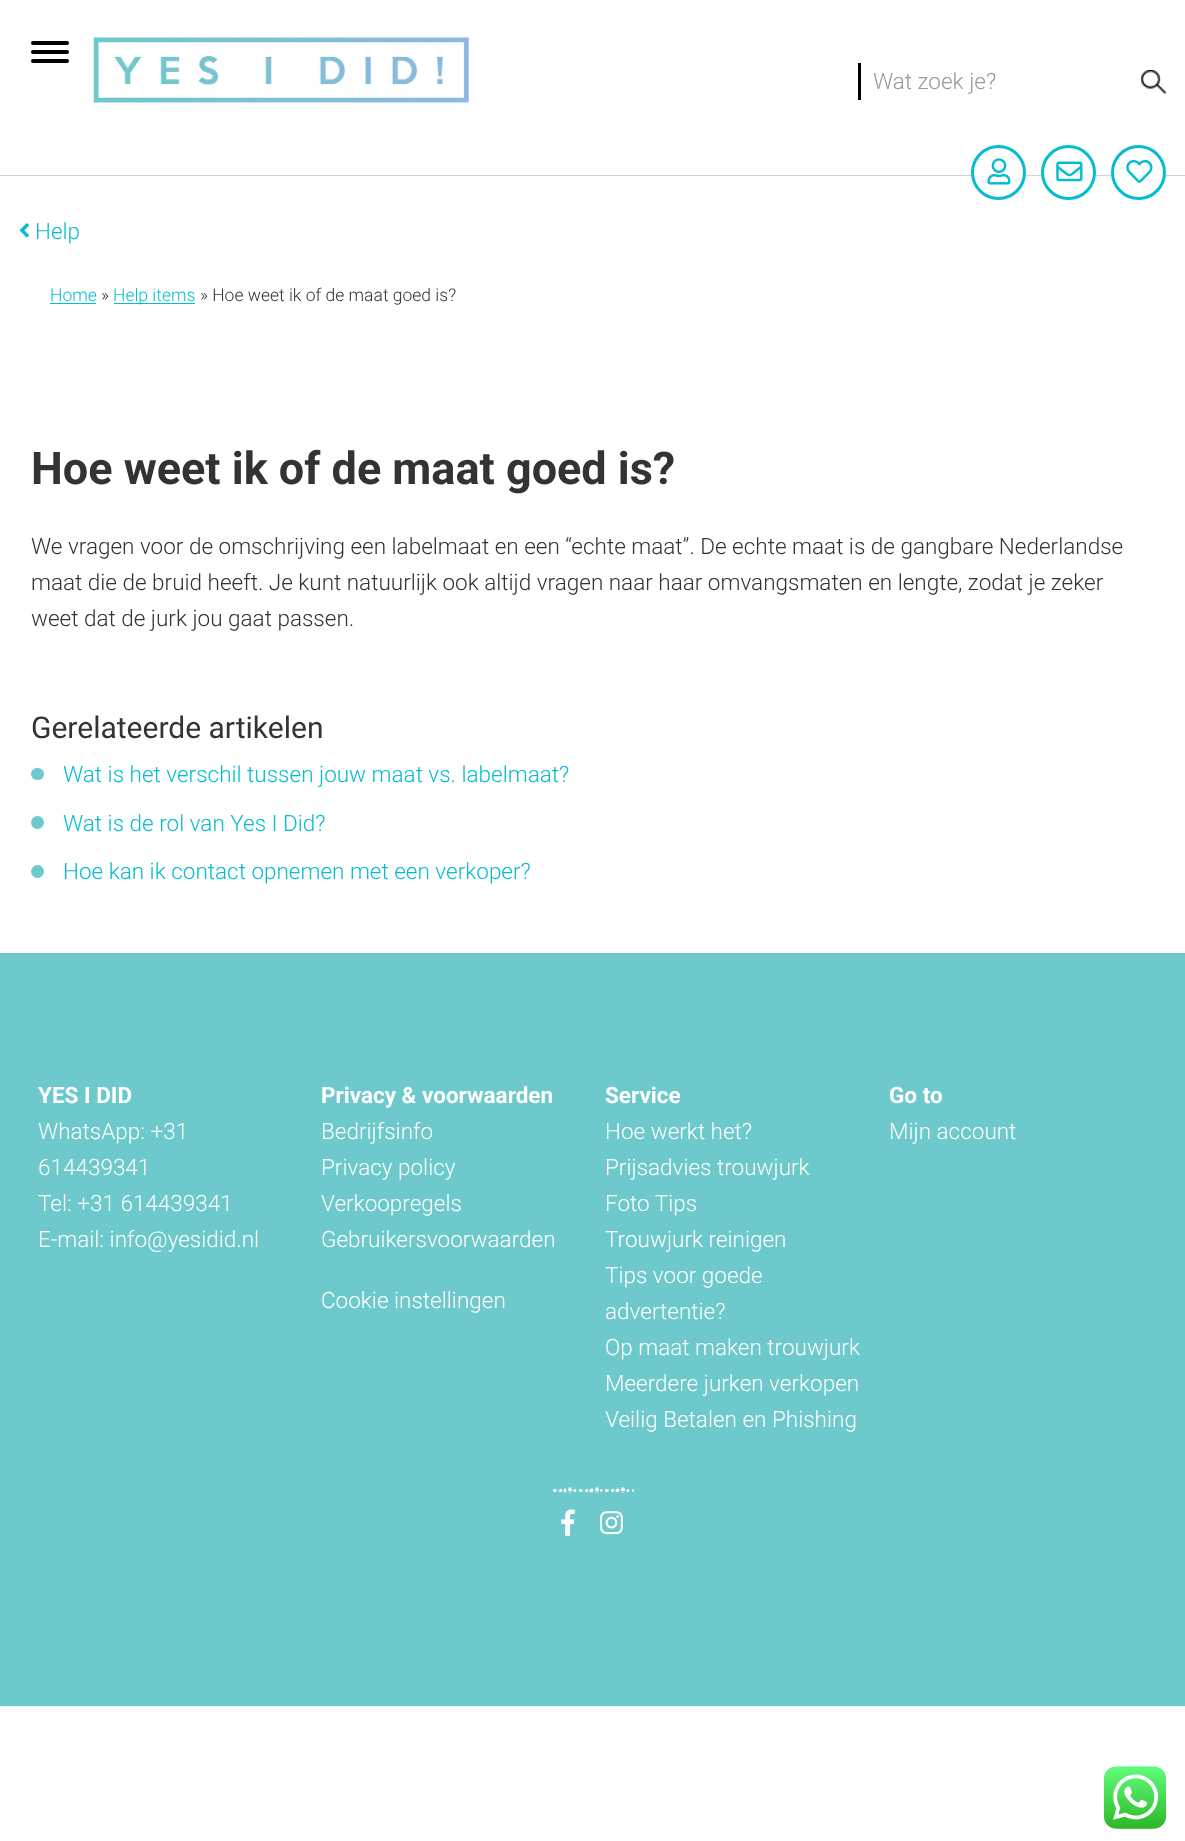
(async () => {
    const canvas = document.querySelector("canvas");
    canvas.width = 1185;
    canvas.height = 1841;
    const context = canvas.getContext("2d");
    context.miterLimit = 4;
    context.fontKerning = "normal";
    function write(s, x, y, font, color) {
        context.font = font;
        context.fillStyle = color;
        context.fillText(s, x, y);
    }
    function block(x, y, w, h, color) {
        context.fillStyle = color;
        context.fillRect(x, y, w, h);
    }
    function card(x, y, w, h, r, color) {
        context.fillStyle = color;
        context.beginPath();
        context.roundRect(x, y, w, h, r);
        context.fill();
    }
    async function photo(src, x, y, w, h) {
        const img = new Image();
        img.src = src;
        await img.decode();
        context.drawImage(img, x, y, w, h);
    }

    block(0, 0, 1185, 1841, "rgb(255, 255, 255)");
    block(0, 175, 1185, 1, "rgb(209, 210, 212)");
    card(31, 50, 38, 4, 2, "rgb(0, 0, 0)");
    card(31, 41, 38, 4, 2, "rgb(0, 0, 0)");
    card(31, 59, 38, 4, 2, "rgb(0, 0, 0)");
    await photo("media/1.png", 93, 37, 376, 66);
    block(858, 63, 3, 37, "rgb(0, 0, 0)");
    write("Wat zoek je?", 873, 89, "300 22.5px Roboto", "rgb(153, 153, 153)");
    await photo("media/2.png", 1141, 70, 26, 24);
    context.fillStyle = "rgb(255, 255, 255)";
    context.beginPath();
    context.arc(998.5, 172.5, 26, 0, Math.PI * 2);
    context.fill();
    context.strokeStyle = "rgb(6, 189, 207)";
    context.lineWidth = 3;
    context.stroke();
    await photo("media/3.png", 987, 158, 24, 27);
    context.beginPath();
    context.arc(1068.5, 172.5, 26, 0, Math.PI * 2);
    context.fill();
    context.stroke();
    await photo("media/4.png", 1056, 161, 27, 21);
    context.beginPath();
    context.arc(1138.5, 172.5, 26, 0, Math.PI * 2);
    context.fill();
    context.stroke();
    await photo("media/5.png", 1126, 159, 27, 24);
    await photo("media/6.png", 19, 223, 10, 15);
    write("Help", 35, 239, "300 22.5px Roboto", "rgb(6, 189, 207)");
    write("Home", 50, 301, "300 17.5px Roboto", "rgb(6, 189, 207)");
    block(50, 303, 46, 1, "rgb(6, 189, 207)");
    write("»", 101, 301, "300 17.5px Roboto", "rgb(51, 51, 51)");
    block(114, 303, 81, 1, "rgb(6, 189, 207)");
    write("Help items", 113, 301, "300 17.5px Roboto", "rgb(6, 189, 207)");
    write("» Hoe weet ik of de maat goed is?", 200, 301, "300 17.5px Roboto", "rgb(51, 51, 51)");
    write("Hoe weet ik of de maat goed is?", 31, 484, "bold 45px Roboto", "rgb(51, 51, 51)");
    write("We vragen voor de omschrijving een labelmaat en een “echte maat”. De echte maat is de gangbare Nederlandse", 31, 554, "300 22.5px Roboto", "rgb(51, 51, 51)");
    write("maat die de bruid heeft. Je kunt natuurlijk ook altijd vragen naar haar omvangsmaten en lengte, zodat je zeker", 31, 590, "300 22.5px Roboto", "rgb(51, 51, 51)");
    write("weet dat de jurk jou gaat passen.", 31, 626, "300 22.5px Roboto", "rgb(51, 51, 51)");
    write("Gerelateerde artikelen", 31, 738, "30px Roboto", "rgb(51, 51, 51)");
    card(31, 768, 13, 12, 6, "rgb(109, 201, 203)");
    write("Wat is het verschil tussen jouw maat vs. labelmaat?", 63, 782, "300 22.5px Roboto", "rgb(6, 189, 207)");
    context.fillStyle = "rgb(109, 201, 203)";
    context.beginPath();
    context.arc(37.5, 822.5, 6.5, 0, Math.PI * 2);
    context.fill();
    write("Wat is de rol van Yes I Did?", 63, 831, "300 22.5px Roboto", "rgb(6, 189, 207)");
    context.fillStyle = "rgb(109, 201, 203)";
    context.beginPath();
    context.arc(37.5, 871.5, 6.5, 0, Math.PI * 2);
    context.fill();
    write("Hoe kan ik contact opnemen met een verkoper?", 63, 879, "300 22.5px Roboto", "rgb(6, 189, 207)");
    block(0, 953, 1185, 753, "rgb(109, 201, 203)");
    write("YES I DID", 38, 1103, "bold 22.5px Roboto", "rgb(255, 255, 255)");
    write("WhatsApp: +31", 38, 1139, "300 22.5px Roboto", "rgb(255, 255, 255)");
    write("614439341", 38, 1175, "300 22.5px Roboto", "rgb(255, 255, 255)");
    write("Tel: +31 614439341", 38, 1211, "300 22.5px Roboto", "rgb(255, 255, 255)");
    write("E-mail: info@yesidid.nl", 38, 1247, "300 22.5px Roboto", "rgb(255, 255, 255)");
    write("Privacy & voorwaarden", 321, 1103, "bold 22.5px Roboto", "rgb(255, 255, 255)");
    write("Bedrijfsinfo", 321, 1139, "300 22.5px Roboto", "rgb(255, 255, 255)");
    write("Privacy policy", 321, 1175, "300 22.5px Roboto", "rgb(255, 255, 255)");
    write("Verkoopregels", 321, 1211, "300 22.5px Roboto", "rgb(255, 255, 255)");
    write("Gebruikersvoorwaarden", 321, 1247, "300 22.5px Roboto", "rgb(255, 255, 255)");
    write("Cookie instellingen", 321, 1308, "300 22.5px Roboto", "rgb(255, 255, 255)");
    write("Service", 605, 1103, "bold 22.5px Roboto", "rgb(255, 255, 255)");
    write("Hoe werkt het?", 605, 1139, "300 22.5px Roboto", "rgb(255, 255, 255)");
    write("Prijsadvies trouwjurk", 605, 1175, "300 22.5px Roboto", "rgb(255, 255, 255)");
    write("Foto Tips", 605, 1211, "300 22.5px Roboto", "rgb(255, 255, 255)");
    write("Trouwjurk reinigen", 605, 1247, "300 22.5px Roboto", "rgb(255, 255, 255)");
    write("Tips voor goede", 605, 1283, "300 22.5px Roboto", "rgb(255, 255, 255)");
    write("advertentie?", 605, 1319, "300 22.5px Roboto", "rgb(255, 255, 255)");
    write("Op maat maken trouwjurk", 605, 1355, "300 22.5px Roboto", "rgb(255, 255, 255)");
    write("Meerdere jurken verkopen", 605, 1391, "300 22.5px Roboto", "rgb(255, 255, 255)");
    write("Veilig Betalen en Phishing", 605, 1427, "300 22.5px Roboto", "rgb(255, 255, 255)");
    write("Go to", 889, 1103, "bold 22.5px Roboto", "rgb(255, 255, 255)");
    write("Mijn account", 889, 1139, "300 22.5px Roboto", "rgb(255, 255, 255)");
    await photo("media/7.png", 553, 1487, 81, 6);
    await photo("media/8.png", 561, 1509, 14, 27);
    await photo("media/9.png", 600, 1511, 23, 24);
    await photo("media/10.png", 1104, 1766, 62, 63);
})();
